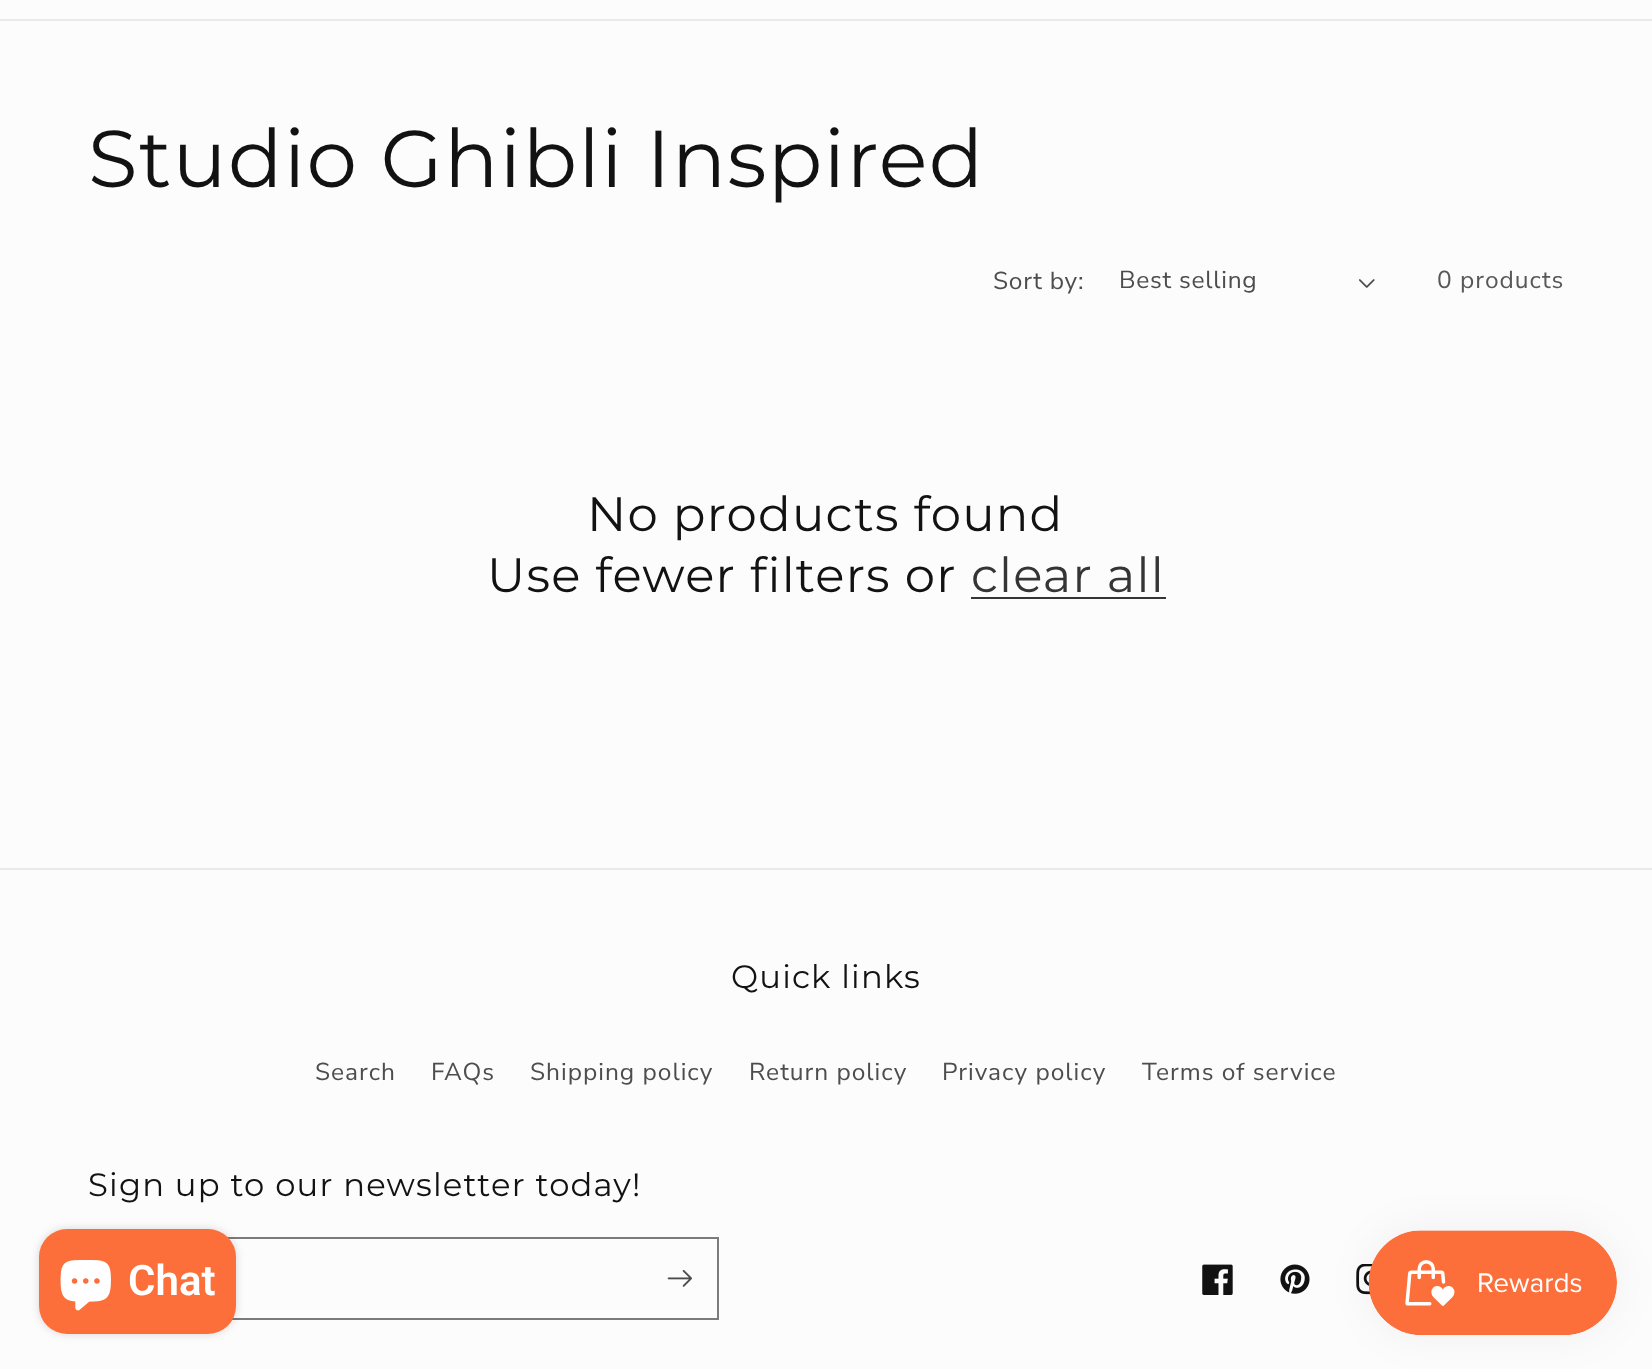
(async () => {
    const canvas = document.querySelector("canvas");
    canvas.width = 1652;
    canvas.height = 1369;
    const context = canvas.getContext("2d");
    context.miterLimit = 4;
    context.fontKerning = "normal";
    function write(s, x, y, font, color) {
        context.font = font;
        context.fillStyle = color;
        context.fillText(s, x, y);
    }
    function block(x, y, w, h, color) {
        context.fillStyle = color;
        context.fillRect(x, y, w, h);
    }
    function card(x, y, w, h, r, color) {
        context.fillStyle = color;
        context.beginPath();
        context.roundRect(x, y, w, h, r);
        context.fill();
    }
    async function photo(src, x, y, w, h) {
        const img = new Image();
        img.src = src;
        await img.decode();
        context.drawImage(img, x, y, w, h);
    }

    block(0, 0, 1652, 1369, "rgb(253, 252, 252)");
    block(0, 19, 1652, 2, "rgb(234, 233, 233)");
    context.letterSpacing = "1.2px";
    write("Studio Ghibli Inspired", 88, 187, "80.5px Montserrat", "rgb(18, 18, 18)");
    context.letterSpacing = "0.75px";
    write("Sort by:", 993, 289, "24.5px Nunito Sans", "rgb(77, 77, 77)");
    write("Best selling", 1119, 288, "24.5px Nunito Sans", "rgb(77, 77, 77)");
    await photo("media/1.png", 1359, 279, 16, 9);
    context.letterSpacing = "1px";
    write("0 products", 1437, 288, "24.5px Nunito Sans", "rgb(89, 88, 88)");
    context.letterSpacing = "1.2px";
    write("No products found", 587, 531, "48.25px Montserrat", "rgb(18, 18, 18)");
    write("Use fewer filters or", 487, 592, "48.25px Montserrat", "rgb(18, 18, 18)");
    write("clear all", 971, 592, "48.25px Montserrat", "rgb(53, 53, 53)");
    block(971, 597, 195, 2, "rgb(53, 53, 53)");
    block(0, 868, 1652, 2, "rgb(234, 233, 233)");
    write("Quick links", 731, 988, "32.25px Montserrat", "rgb(18, 18, 18)");
    context.letterSpacing = "1px";
    write("Search", 315, 1080, "24.5px Nunito Sans", "rgb(77, 77, 77)");
    write("FAQs", 431, 1080, "24.5px Nunito Sans", "rgb(77, 77, 77)");
    write("Shipping policy", 530, 1080, "24.5px Nunito Sans", "rgb(77, 77, 77)");
    write("Return policy", 749, 1080, "24.5px Nunito Sans", "rgb(77, 77, 77)");
    write("Privacy policy", 942, 1080, "24.5px Nunito Sans", "rgb(77, 77, 77)");
    write("Terms of service", 1142, 1080, "24.5px Nunito Sans", "rgb(77, 77, 77)");
    context.letterSpacing = "1.2px";
    write("Sign up to our newsletter today!", 88, 1196, "32.25px Montserrat", "rgb(18, 18, 18)");
    context.strokeStyle = "rgb(124, 123, 123)";
    context.lineWidth = 2;
    context.strokeRect(87, 1238, 631, 81);
    await photo("media/2.png", 667, 1270, 25, 17);
    await photo("media/3.png", 1202, 1264, 31, 31);
    await photo("media/4.png", 1280, 1264, 30, 30);
    await photo("media/5.png", 1356, 1264, 17, 31);
    context.fillStyle = "rgba(0, 0, 0, 0.15)";
    context.filter = "blur(4.5px)";
    context.beginPath();
    context.roundRect(39, 1229, 197, 105, 28);
    context.fill();
    context.filter = "none";
    card(39, 1229, 197, 105, 28, "rgb(253, 111, 58)");
    await photo("media/6.png", 60, 1260, 51, 51);
    context.letterSpacing = "0px";
    write("Chat", 128, 1295, "600 42px Roboto", "rgb(255, 255, 255)");
    context.fillStyle = "rgba(0, 0, 0, 0.05)";
    context.filter = "blur(22px)";
    context.beginPath();
    context.roundRect(1369, 1230, 248, 105, 52.5);
    context.fill();
    context.filter = "none";
    await photo("media/7.png", 1368, 1230, 249, 105);
})();
